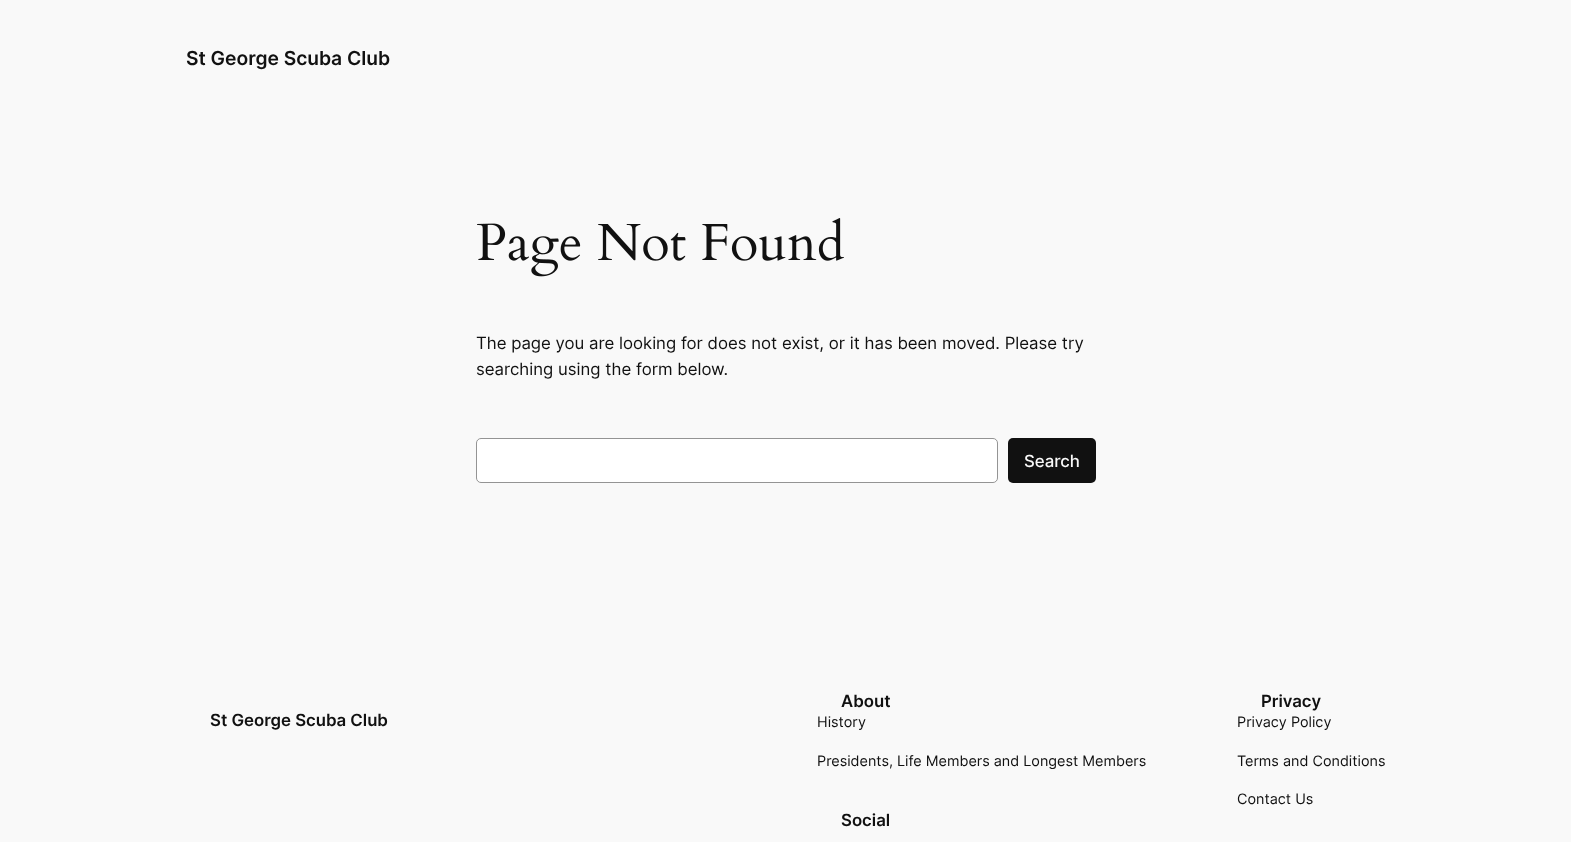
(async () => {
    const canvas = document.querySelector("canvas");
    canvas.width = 1571;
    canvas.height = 842;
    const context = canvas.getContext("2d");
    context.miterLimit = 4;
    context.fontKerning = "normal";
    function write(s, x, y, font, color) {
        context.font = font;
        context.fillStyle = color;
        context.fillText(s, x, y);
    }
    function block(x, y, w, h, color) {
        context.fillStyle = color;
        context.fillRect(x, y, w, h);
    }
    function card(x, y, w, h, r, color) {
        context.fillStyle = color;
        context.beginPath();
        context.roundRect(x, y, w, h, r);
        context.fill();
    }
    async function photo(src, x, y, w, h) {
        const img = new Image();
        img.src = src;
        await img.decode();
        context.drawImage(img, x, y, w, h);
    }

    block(0, 0, 1571, 842, "rgb(249, 249, 249)");
    write("St George Scuba Club", 186, 65, "600 19.25px Inter", "rgb(17, 17, 17)");
    await photo("media/1.png", 477, 218, 367, 59);
    write("The page you are looking for does not exist, or it has been moved. Please try", 476, 349, "16.8px Inter", "rgb(17, 17, 17)");
    write("searching using the form below.", 476, 375, "16.8px Inter", "rgb(17, 17, 17)");
    context.fillStyle = "rgb(255, 255, 255)";
    context.beginPath();
    context.roundRect(476.5, 438.5, 521, 44, 4.5);
    context.fill();
    context.strokeStyle = "rgb(148, 148, 148)";
    context.stroke();
    card(1008, 438, 88, 45, 5, "rgb(17, 17, 17)");
    write("Search", 1024, 467, "500 16.8px Inter", "rgb(249, 249, 249)");
    write("St George Scuba Club", 210, 726, "600 16.8px Inter", "rgb(17, 17, 17)");
    write("About", 841, 707, "600 16.8px Inter", "rgb(17, 17, 17)");
    write("History", 817, 727, "14.4px Inter", "rgb(17, 17, 17)");
    write("Presidents, Life Members and Longest Members", 817, 766, "14.4px Inter", "rgb(17, 17, 17)");
    write("Privacy", 1261, 707, "600 16.8px Inter", "rgb(17, 17, 17)");
    write("Privacy Policy", 1237, 727, "14.4px Inter", "rgb(17, 17, 17)");
    write("Terms and Conditions", 1237, 766, "14.4px Inter", "rgb(17, 17, 17)");
    write("Contact Us", 1237, 804, "14.4px Inter", "rgb(17, 17, 17)");
    write("Social", 841, 826, "600 16.8px Inter", "rgb(17, 17, 17)");
})();
